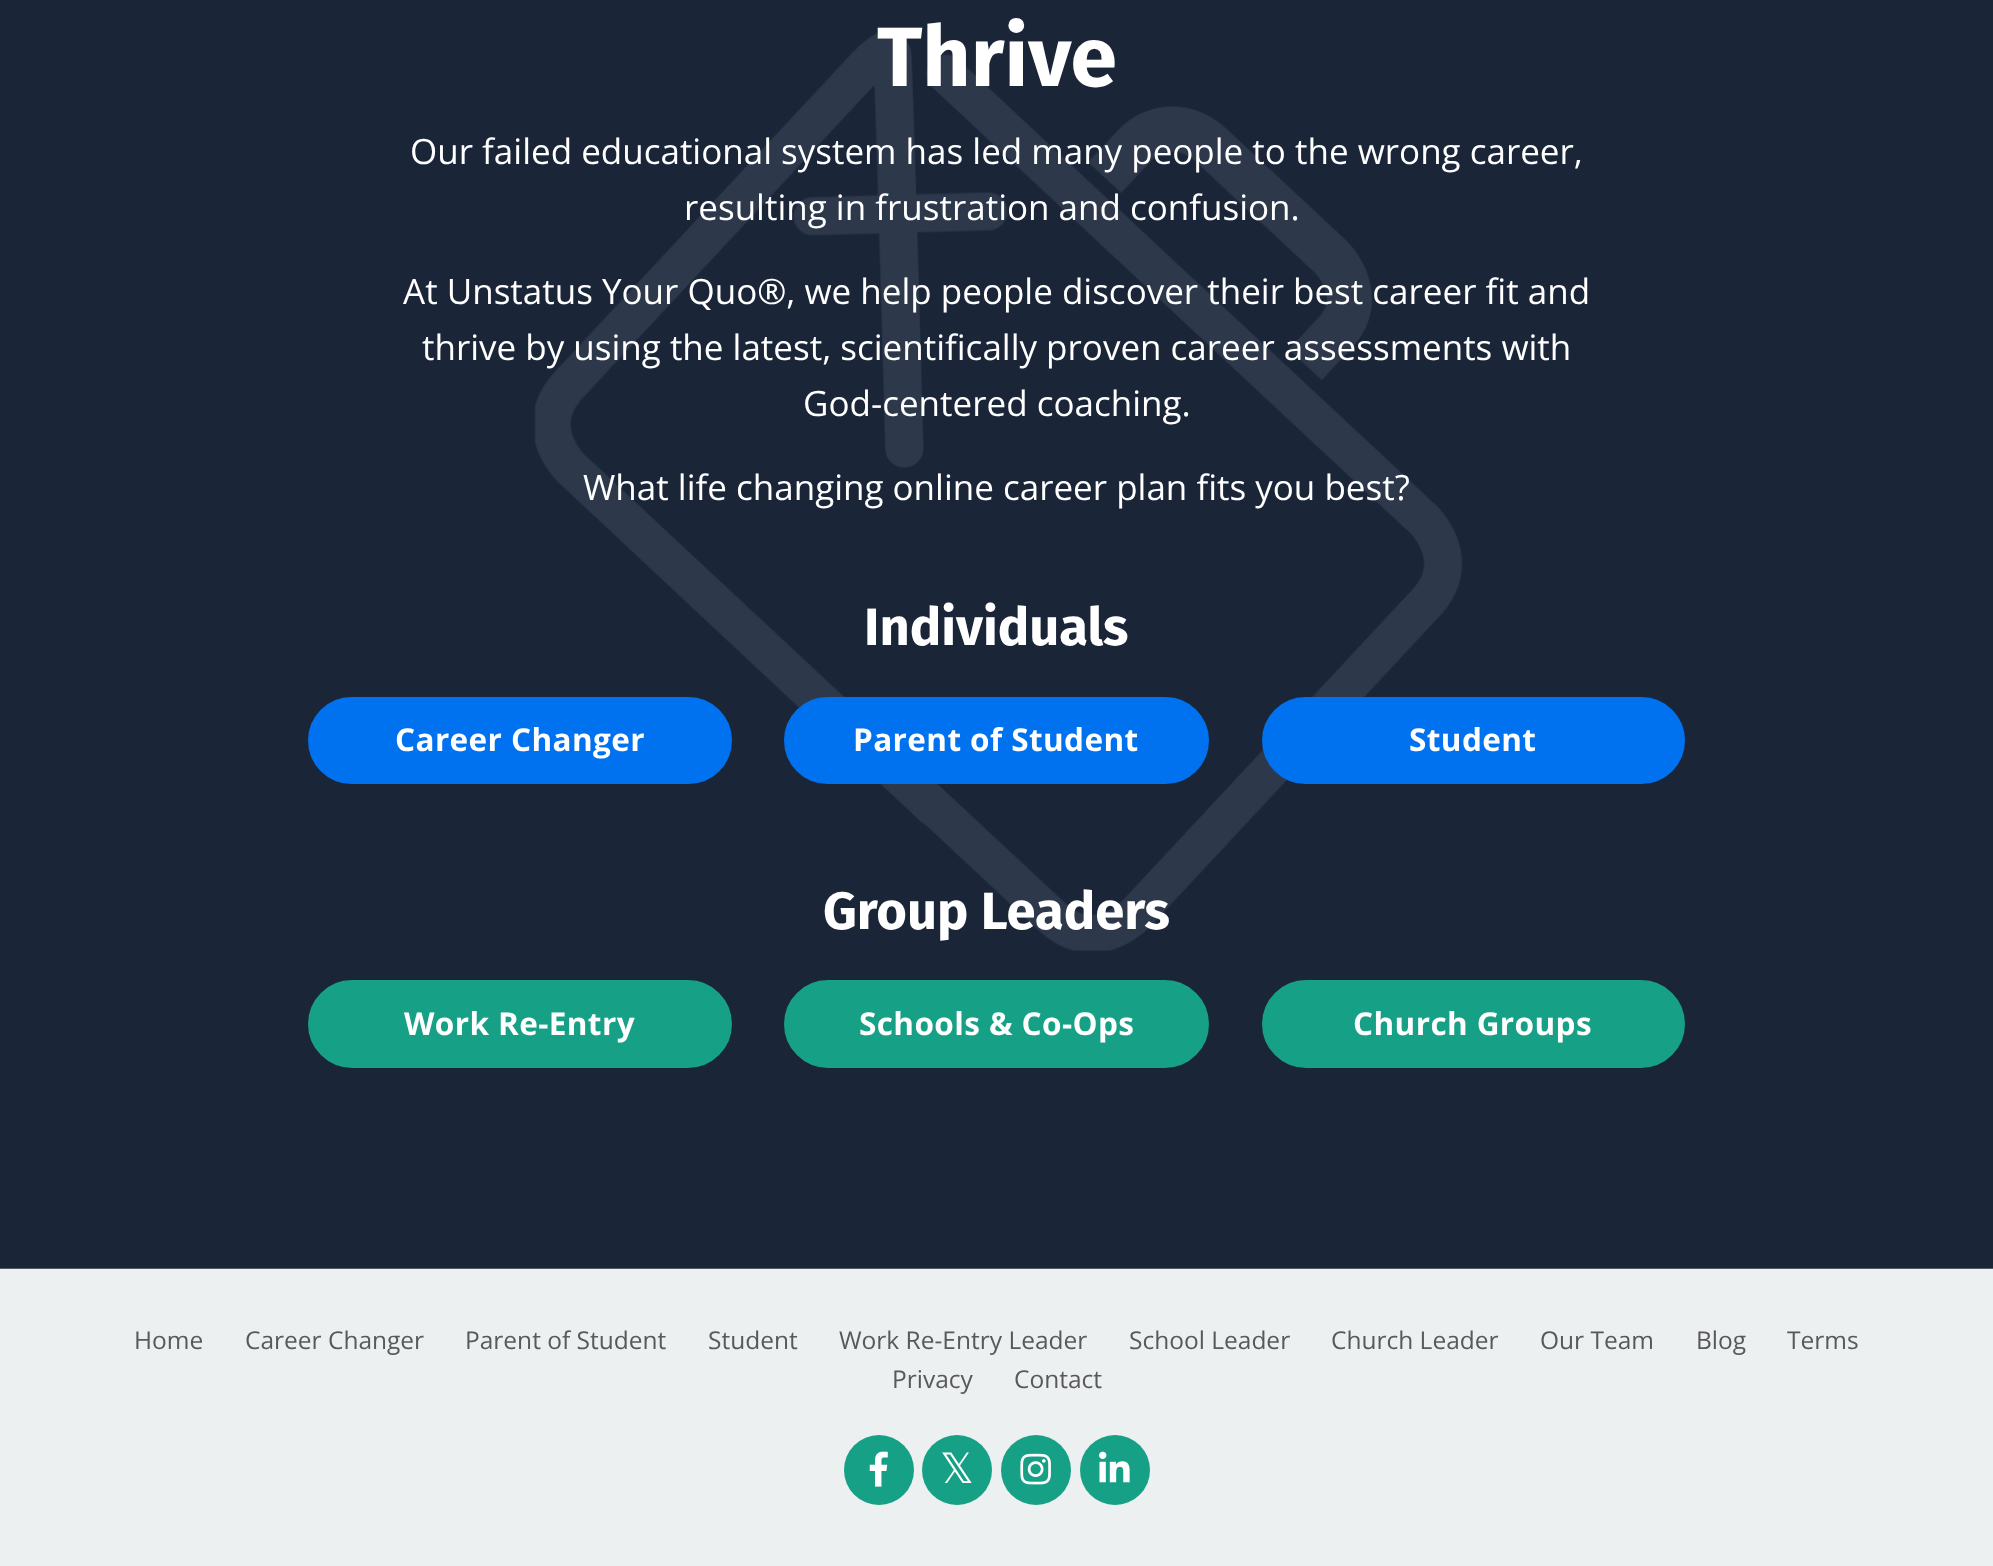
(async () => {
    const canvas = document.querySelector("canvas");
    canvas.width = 1993;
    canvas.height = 1566;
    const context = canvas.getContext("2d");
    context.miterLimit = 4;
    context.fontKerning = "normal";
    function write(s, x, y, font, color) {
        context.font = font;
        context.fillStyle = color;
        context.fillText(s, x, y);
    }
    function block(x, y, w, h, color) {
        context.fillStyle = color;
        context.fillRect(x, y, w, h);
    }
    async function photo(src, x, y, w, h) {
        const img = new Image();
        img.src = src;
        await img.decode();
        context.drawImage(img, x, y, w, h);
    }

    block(0, 0, 1993, 1566, "rgb(255, 255, 255)");
    await photo("media/1.png", 0, 0, 1993, 1269);
    write("Thrive", 877, 86, "bold 84px Fira Sans", "rgb(255, 255, 255)");
    write("Our failed educational system has led many people to the wrong career,", 410, 164, "35px Open Sans", "rgb(255, 255, 255)");
    write("resulting in frustration and confusion.", 684, 220, "35px Open Sans", "rgb(255, 255, 255)");
    write("At Unstatus Your Quo®, we help people discover their best career fit and", 403, 304, "35px Open Sans", "rgb(255, 255, 255)");
    write("thrive by using the latest, scientifically proven career assessments with", 422, 360, "35px Open Sans", "rgb(255, 255, 255)");
    write("God-centered coaching.", 803, 416, "35px Open Sans", "rgb(255, 255, 255)");
    write("What life changing online career plan fits you best?", 583, 500, "35px Open Sans", "rgb(255, 255, 255)");
    write("Individuals", 864, 645, "bold 52.5px Fira Sans", "rgb(255, 255, 255)");
    context.fillStyle = "rgb(0, 114, 239)";
    context.beginPath();
    context.roundRect(310, 699, 420, 83, 41.5);
    context.fill();
    context.strokeStyle = "rgb(0, 114, 239)";
    context.lineWidth = 4;
    context.stroke();
    context.letterSpacing = "0.4px";
    write("Career Changer", 395, 751, "bold 31.5px Open Sans", "rgb(255, 255, 255)");
    context.fillStyle = "rgb(0, 114, 239)";
    context.beginPath();
    context.roundRect(786, 699, 421, 83, 41.5);
    context.fill();
    context.stroke();
    write("Parent of Student", 853, 751, "bold 31.5px Open Sans", "rgb(255, 255, 255)");
    context.fillStyle = "rgb(0, 114, 239)";
    context.beginPath();
    context.roundRect(1264, 699, 419, 83, 41.5);
    context.fill();
    context.stroke();
    write("Student", 1409, 751, "bold 31.5px Open Sans", "rgb(255, 255, 255)");
    context.letterSpacing = "0px";
    write("Group Leaders", 823, 929, "bold 52.5px Fira Sans", "rgb(255, 255, 255)");
    context.fillStyle = "rgb(22, 160, 133)";
    context.beginPath();
    context.roundRect(310, 982, 420, 84, 42);
    context.fill();
    context.strokeStyle = "rgb(22, 160, 133)";
    context.stroke();
    context.letterSpacing = "0.4px";
    write("Work Re-Entry", 404, 1035, "bold 31.5px Open Sans", "rgb(255, 255, 255)");
    context.fillStyle = "rgb(22, 160, 133)";
    context.beginPath();
    context.roundRect(786, 982, 421, 84, 42);
    context.fill();
    context.stroke();
    write("Schools & Co-Ops", 859, 1035, "bold 31.5px Open Sans", "rgb(255, 255, 255)");
    context.fillStyle = "rgb(22, 160, 133)";
    context.beginPath();
    context.roundRect(1264, 982, 419, 84, 42);
    context.fill();
    context.stroke();
    write("Church Groups", 1353, 1035, "bold 31.5px Open Sans", "rgb(255, 255, 255)");
    block(0, 1269, 1993, 297, "rgb(236, 240, 241)");
    context.letterSpacing = "0px";
    write("Home", 134, 1349, "24.5px Open Sans", "rgb(89, 89, 89)");
    write("Career Changer", 245, 1349, "24.5px Open Sans", "rgb(89, 89, 89)");
    write("Parent of Student", 465, 1349, "24.5px Open Sans", "rgb(89, 89, 89)");
    write("Student", 708, 1349, "24.5px Open Sans", "rgb(89, 89, 89)");
    write("Work Re-Entry Leader", 839, 1349, "24.5px Open Sans", "rgb(89, 89, 89)");
    write("School Leader", 1129, 1349, "24.5px Open Sans", "rgb(89, 89, 89)");
    write("Church Leader", 1331, 1349, "24.5px Open Sans", "rgb(89, 89, 89)");
    write("Our Team", 1540, 1349, "24.5px Open Sans", "rgb(89, 89, 89)");
    write("Blog", 1696, 1349, "24.5px Open Sans", "rgb(89, 89, 89)");
    write("Terms", 1787, 1349, "24.5px Open Sans", "rgb(89, 89, 89)");
    write("Privacy", 892, 1388, "24.5px Open Sans", "rgb(89, 89, 89)");
    write("Contact", 1014, 1388, "24.5px Open Sans", "rgb(89, 89, 89)");
    context.fillStyle = "rgb(22, 160, 133)";
    context.beginPath();
    context.arc(879, 1470, 35, 0, Math.PI * 2);
    context.fill();
    await photo("media/2.png", 869, 1451, 19, 36);
    context.beginPath();
    context.arc(957, 1470, 35, 0, Math.PI * 2);
    context.fill();
    write("𝕏", 940, 1483, "42px DejaVu Sans", "rgb(255, 255, 255)");
    context.fillStyle = "rgb(22, 160, 133)";
    context.beginPath();
    context.arc(1036, 1470, 35, 0, Math.PI * 2);
    context.fill();
    await photo("media/3.png", 1020, 1453, 31, 32);
    context.beginPath();
    context.arc(1115, 1470, 35, 0, Math.PI * 2);
    context.fill();
    await photo("media/4.png", 1099, 1451, 31, 32);
})();
